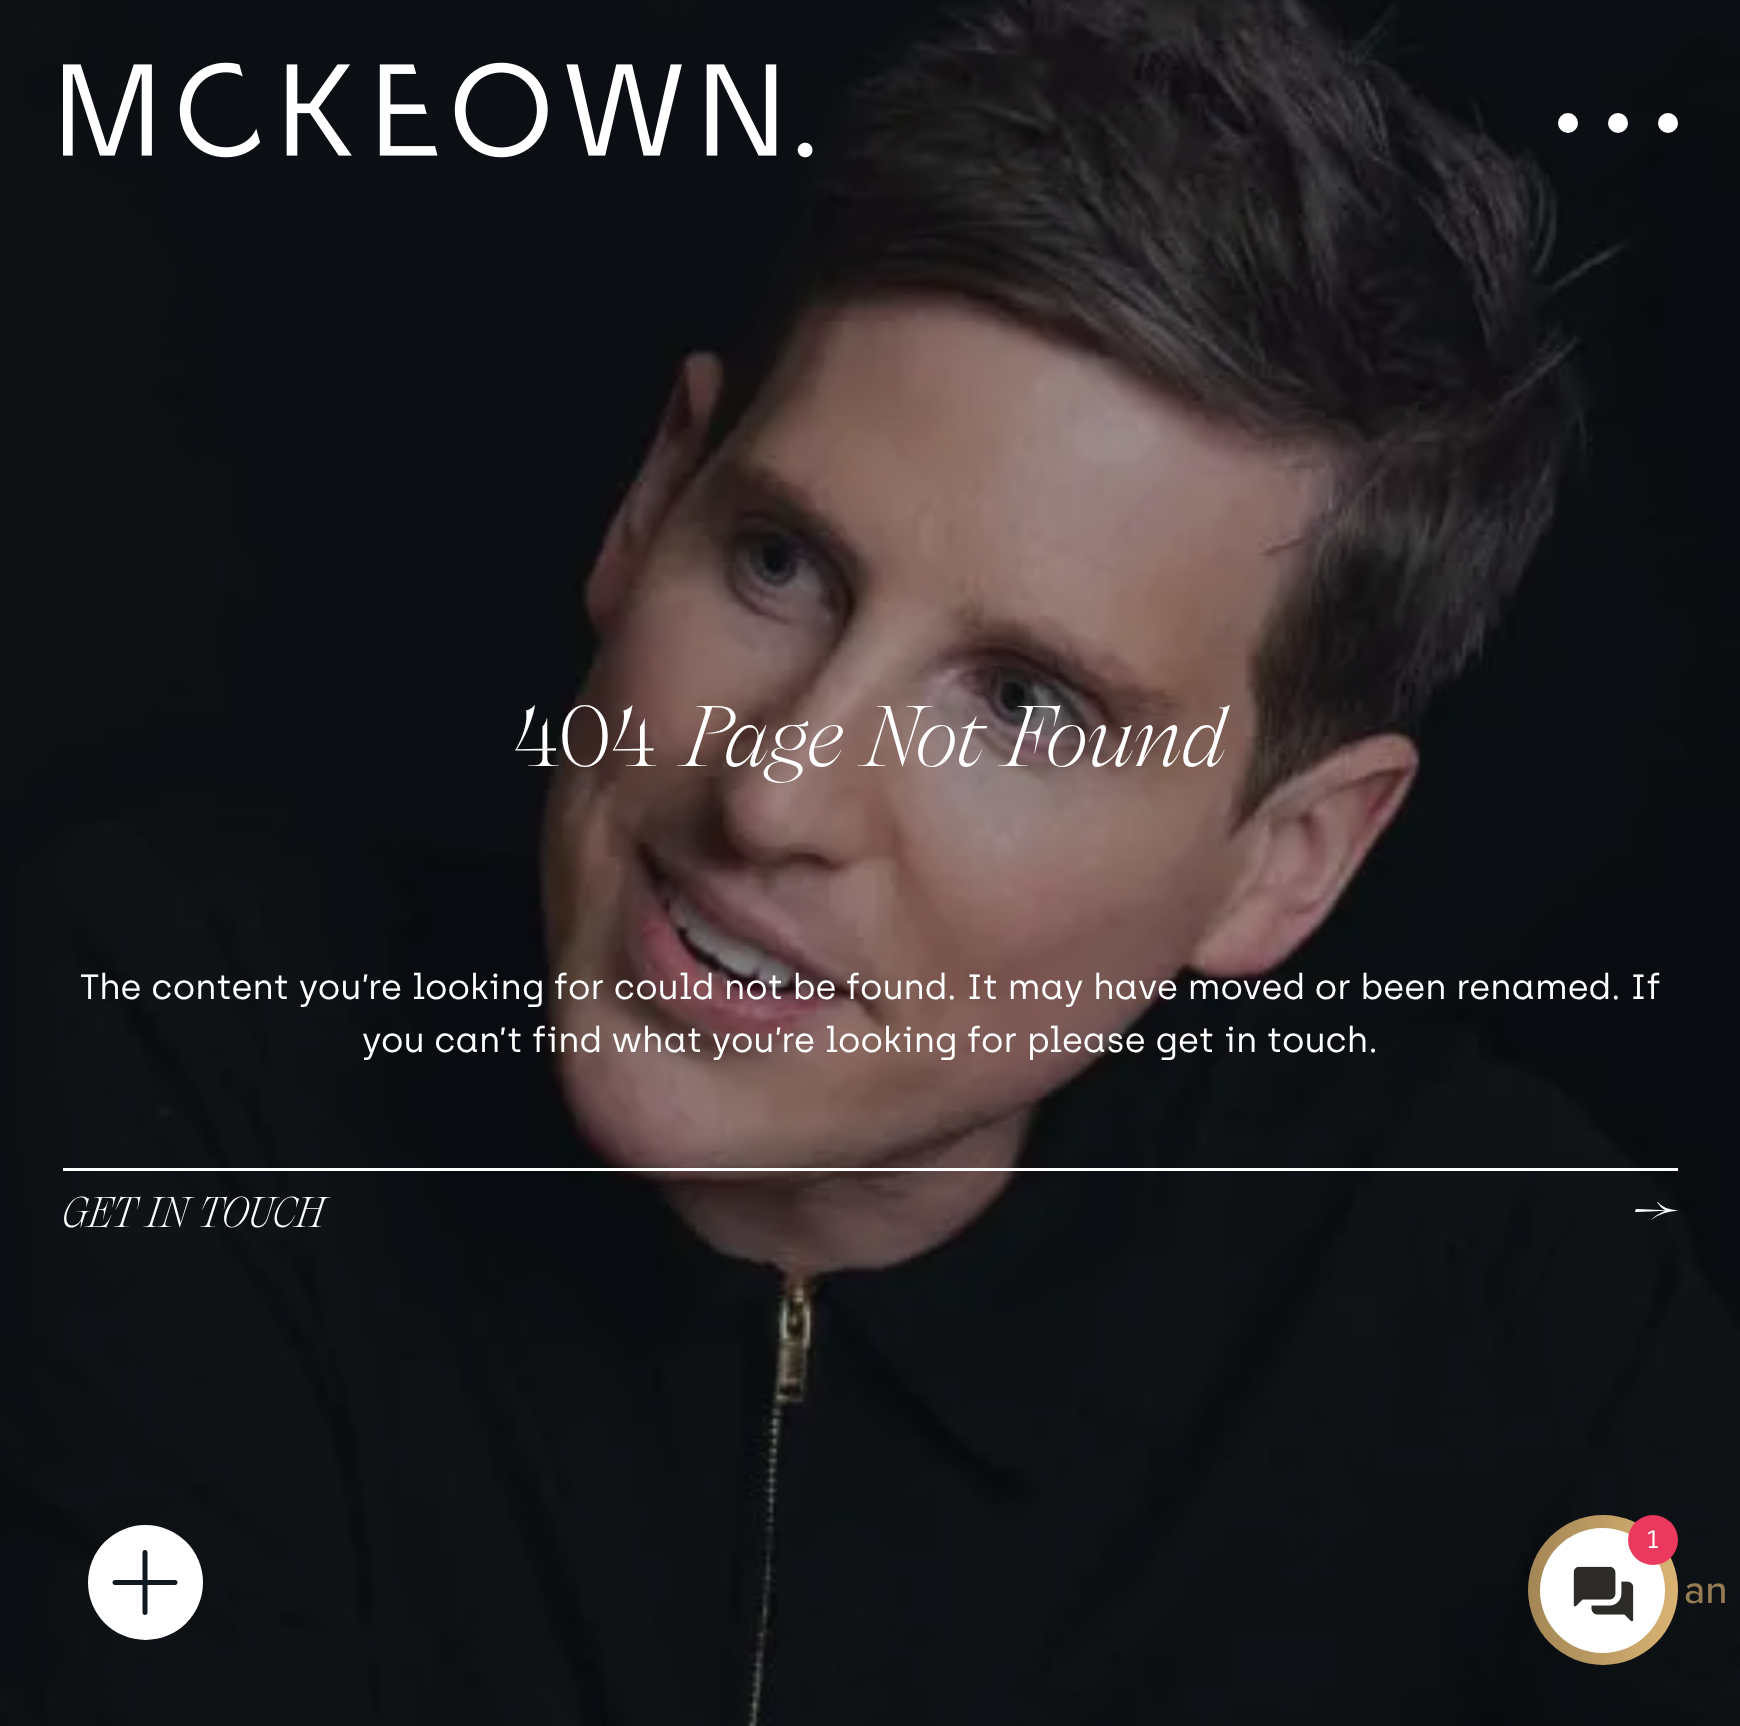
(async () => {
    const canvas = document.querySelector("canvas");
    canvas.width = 1740;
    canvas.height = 1726;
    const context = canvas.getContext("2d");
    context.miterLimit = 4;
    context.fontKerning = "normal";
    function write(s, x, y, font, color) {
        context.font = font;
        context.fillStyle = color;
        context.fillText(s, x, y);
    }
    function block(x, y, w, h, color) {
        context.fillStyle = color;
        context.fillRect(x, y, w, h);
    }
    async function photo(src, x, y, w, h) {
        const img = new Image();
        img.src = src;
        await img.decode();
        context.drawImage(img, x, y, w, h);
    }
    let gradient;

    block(0, 0, 1740, 1726, "rgb(255, 255, 255)");
    await photo("media/2.png", 0, 0, 1740, 1726);
    await photo("media/1.png", 63, 62, 750, 96);
    context.beginPath();
    context.arc(1618, 123, 10, 0, Math.PI * 2);
    context.fill();
    context.beginPath();
    context.arc(1568, 123, 10, 0, Math.PI * 2);
    context.fill();
    context.beginPath();
    context.arc(1668, 123, 10, 0, Math.PI * 2);
    context.fill();
    write("404", 515, 766, "300 80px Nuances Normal", "rgb(255, 255, 255)");
    write("Page Not Found", 683, 766, "italic 300 80px Nuances Normal", "rgb(255, 255, 255)");
    write("The content you’re looking for could not be found. It may have moved or been renamed. If", 80, 999, "35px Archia", "rgb(255, 255, 255)");
    write("you can’t find what you’re looking for please get in touch.", 362, 1052, "35px Archia", "rgb(255, 255, 255)");
    block(63, 1168, 1615, 3, "rgb(255, 255, 255)");
    write("GET IN TOUCH", 63, 1227, "italic 300 40px Nuances Normal", "rgb(255, 255, 255)");
    write("→", 1632, 1228, "italic 300 50px Nuances Normal", "rgb(255, 255, 255)");
    context.beginPath();
    context.arc(145.5, 1582.5, 57.5, 0, Math.PI * 2);
    context.fill();
    await photo("media/3.png", 112, 1550, 66, 65);
    gradient = context.createLinearGradient(1528, 1590, 1678, 1590);
    gradient.addColorStop(0, "rgb(163, 134, 85)");
    gradient.addColorStop(1, "rgb(217, 179, 115)");
    context.fillStyle = gradient;
    context.beginPath();
    context.arc(1603, 1590, 75, 0, Math.PI * 2);
    context.fill();
    context.fillStyle = "rgb(255, 255, 255)";
    context.beginPath();
    context.arc(1602.5, 1590.5, 62.5, 0, Math.PI * 2);
    context.fill();
    await photo("media/4.png", 1573, 1566, 61, 56);
    context.fillStyle = "rgb(235, 56, 94)";
    context.beginPath();
    context.arc(1653, 1540, 25, 0, Math.PI * 2);
    context.fill();
    write("1", 1646, 1548, "25px Archia", "rgb(255, 255, 255)");
    write("an", 1684, 1603, "500 40px Proxima Nova", "rgb(149, 124, 82)");
})();
